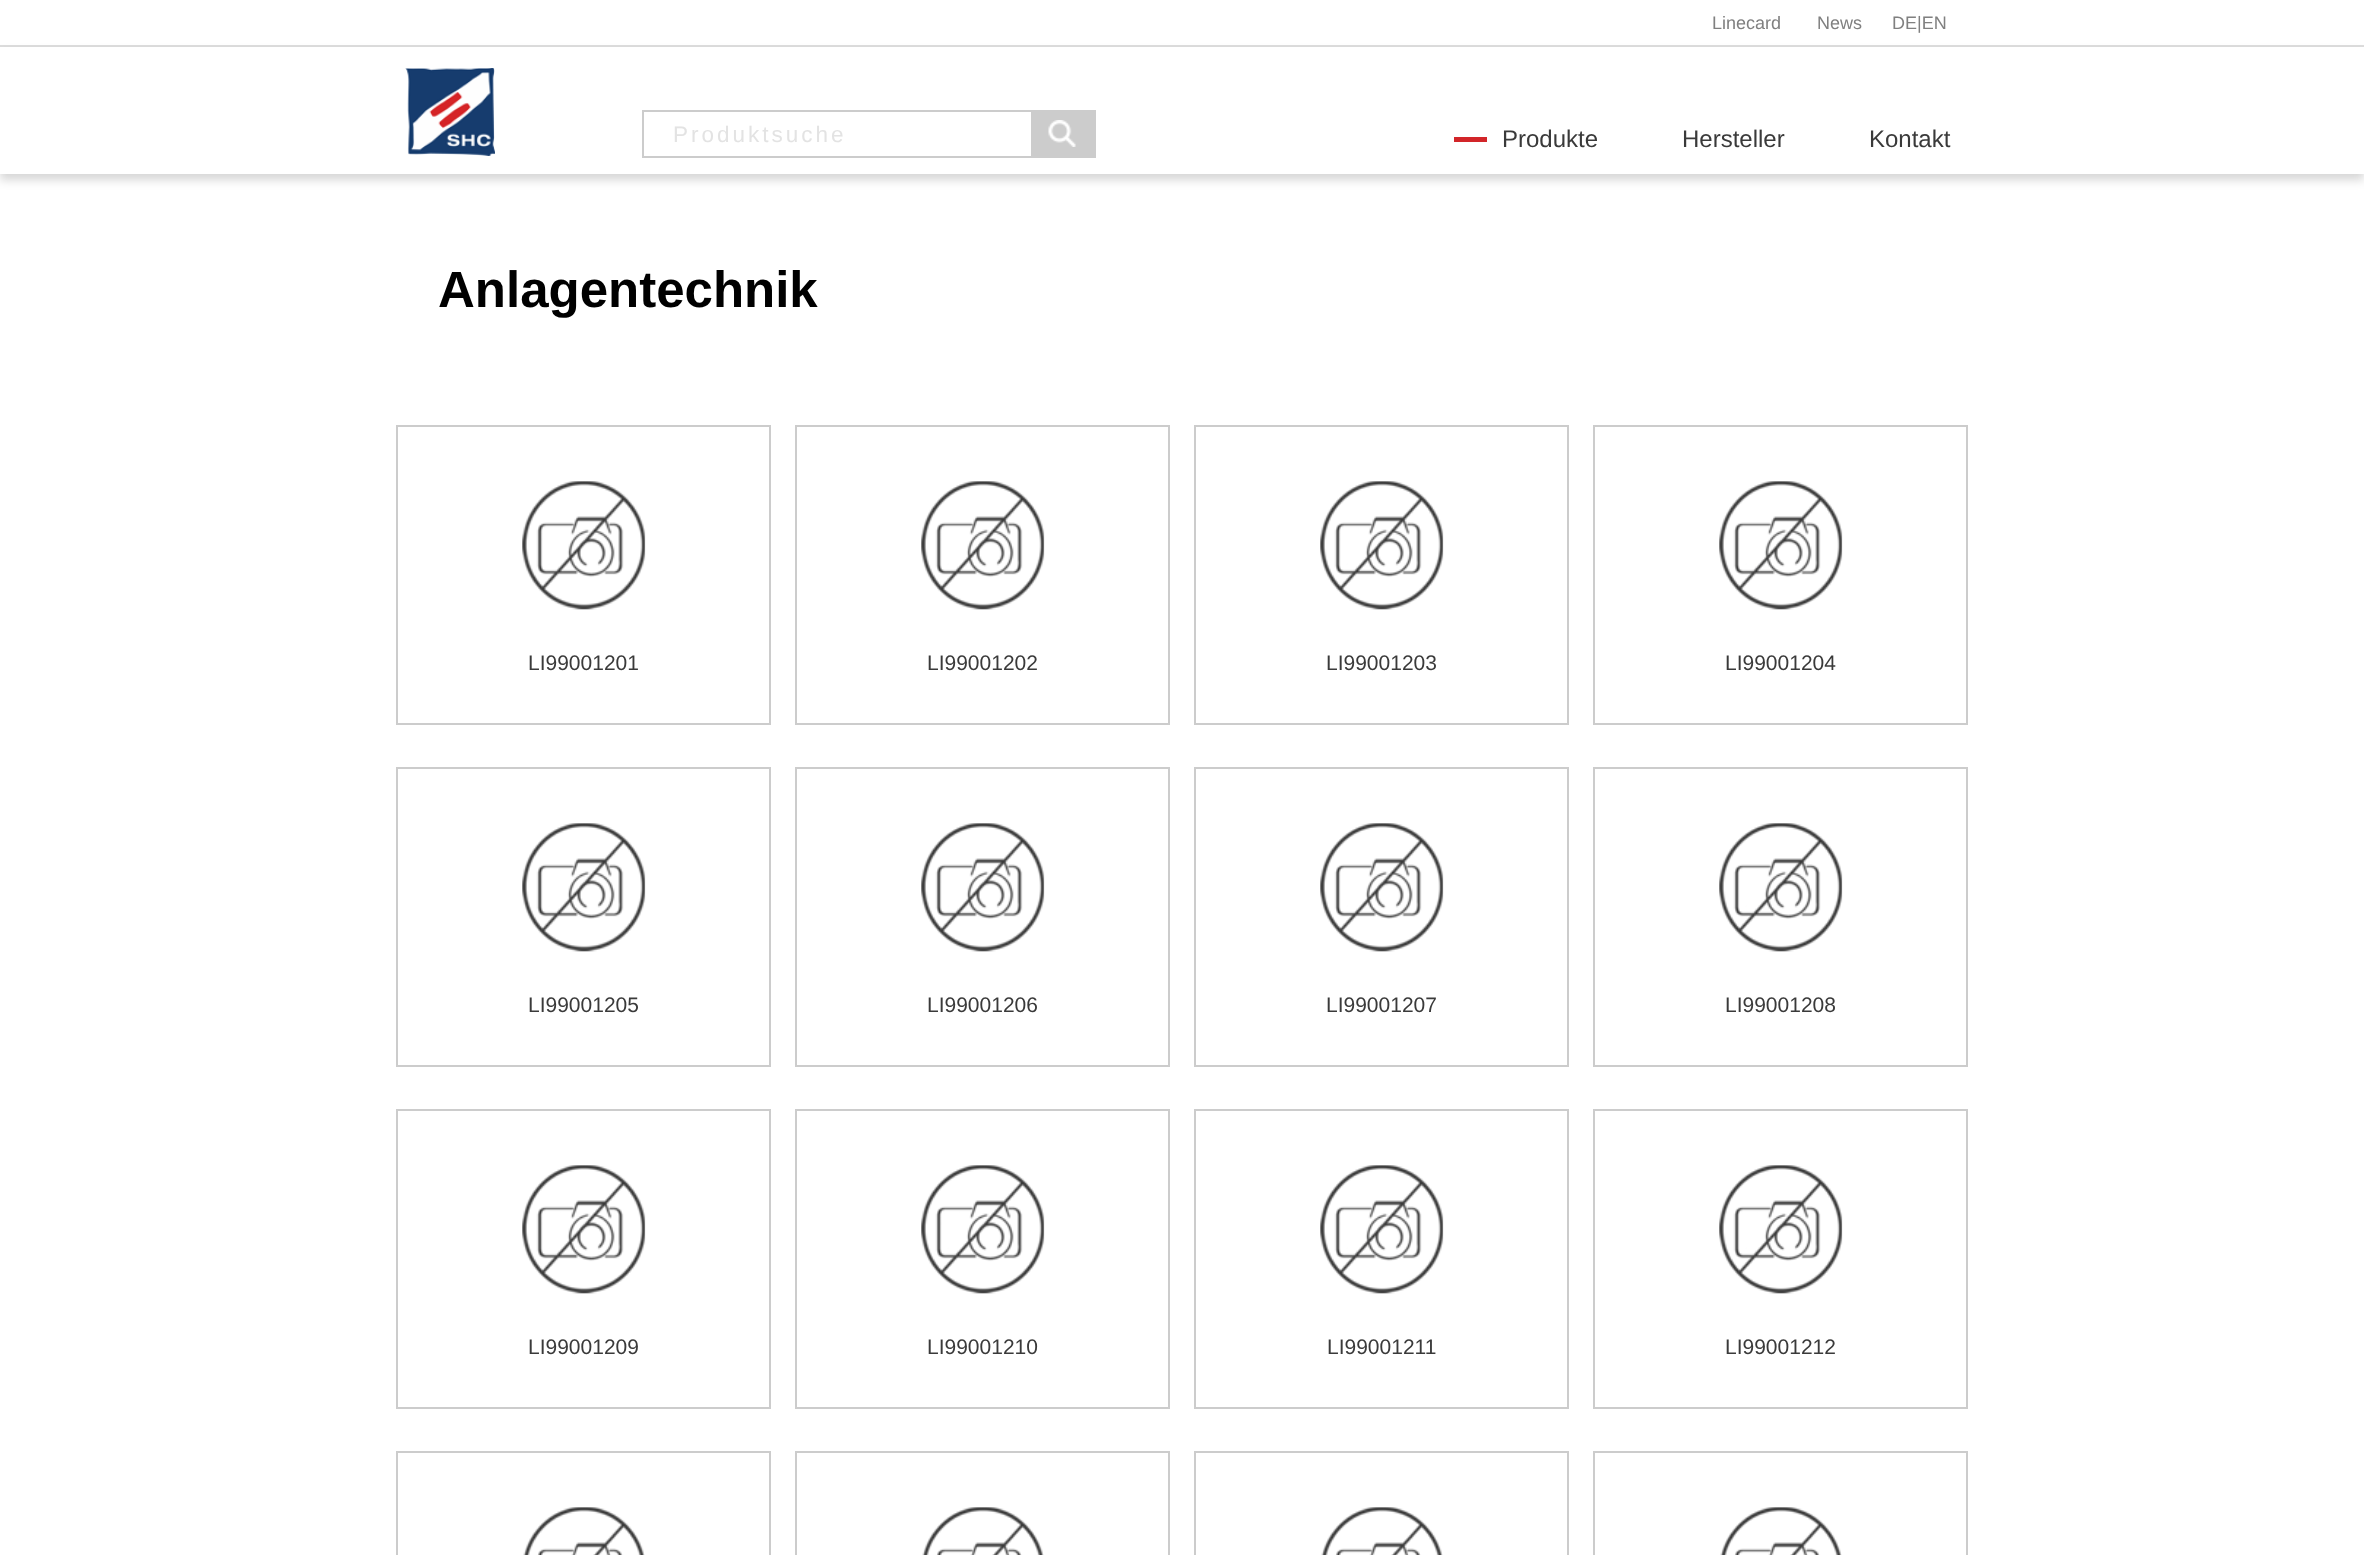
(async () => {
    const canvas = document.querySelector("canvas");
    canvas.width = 2364;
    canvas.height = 1555;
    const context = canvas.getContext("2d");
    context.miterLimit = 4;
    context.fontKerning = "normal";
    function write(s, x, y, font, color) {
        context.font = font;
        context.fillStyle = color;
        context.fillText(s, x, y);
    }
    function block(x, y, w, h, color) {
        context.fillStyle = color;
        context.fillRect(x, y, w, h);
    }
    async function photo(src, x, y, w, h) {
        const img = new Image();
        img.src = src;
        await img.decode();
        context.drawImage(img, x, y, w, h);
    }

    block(0, 0, 2364, 1555, "rgb(255, 255, 255)");
    block(0, 45, 2364, 2, "rgb(221, 221, 221)");
    write("Linecard", 1712, 29, "18px Liberation Sans", "rgb(128, 128, 128)");
    write("News", 1817, 29, "18px Liberation Sans", "rgb(128, 128, 128)");
    write("DE|EN", 1892, 29, "18px Liberation Sans", "rgb(128, 128, 128)");
    context.fillStyle = "rgba(0, 0, 0, 0.16)";
    context.filter = "blur(5px)";
    context.beginPath();
    context.rect(0, 53, 2364, 127);
    context.fill();
    context.filter = "none";
    block(0, 47, 2364, 127, "rgb(255, 255, 255)");
    await photo("media/1.png", 405, 68, 90, 88);
    block(642, 110, 389, 2, "rgb(204, 204, 204)");
    block(642, 156, 389, 2, "rgb(204, 204, 204)");
    block(642, 110, 2, 48, "rgb(204, 204, 204)");
    context.letterSpacing = "3px";
    write("Produktsuche", 673, 142, "22.5px Liberation Sans", "rgb(227, 227, 227)");
    block(1031, 110, 65, 48, "rgb(204, 204, 204)");
    await photo("media/2.png", 1048, 120, 28, 27);
    block(1454, 137, 33, 5, "rgb(210, 37, 41)");
    context.letterSpacing = "0px";
    write("Produkte", 1502, 147, "24px Liberation Sans", "rgb(58, 58, 58)");
    write("Hersteller", 1682, 147, "24px Liberation Sans", "rgb(58, 58, 58)");
    write("Kontakt", 1869, 147, "24px Liberation Sans", "rgb(58, 58, 58)");
    write("Anlagentechnik", 438, 307, "bold 51px Liberation Sans", "rgb(0, 0, 0)");
    context.strokeStyle = "rgb(204, 204, 204)";
    context.lineWidth = 2;
    context.strokeRect(397, 426, 373, 298);
    await photo("media/3.png", 522, 481, 124, 129);
    write("LI99001201", 528, 670, "21px Liberation Sans", "rgb(58, 58, 58)");
    context.strokeRect(796, 426, 373, 298);
    await photo("media/3.png", 921, 481, 124, 129);
    write("LI99001202", 927, 670, "21px Liberation Sans", "rgb(58, 58, 58)");
    context.strokeRect(1195, 426, 373, 298);
    await photo("media/3.png", 1320, 481, 124, 129);
    write("LI99001203", 1326, 670, "21px Liberation Sans", "rgb(58, 58, 58)");
    context.strokeRect(1594, 426, 373, 298);
    await photo("media/3.png", 1719, 481, 124, 129);
    write("LI99001204", 1725, 670, "21px Liberation Sans", "rgb(58, 58, 58)");
    context.strokeRect(397, 768, 373, 298);
    await photo("media/3.png", 522, 823, 124, 129);
    write("LI99001205", 528, 1012, "21px Liberation Sans", "rgb(58, 58, 58)");
    context.strokeRect(796, 768, 373, 298);
    await photo("media/3.png", 921, 823, 124, 129);
    write("LI99001206", 927, 1012, "21px Liberation Sans", "rgb(58, 58, 58)");
    context.strokeRect(1195, 768, 373, 298);
    await photo("media/3.png", 1320, 823, 124, 129);
    write("LI99001207", 1326, 1012, "21px Liberation Sans", "rgb(58, 58, 58)");
    context.strokeRect(1594, 768, 373, 298);
    await photo("media/3.png", 1719, 823, 124, 129);
    write("LI99001208", 1725, 1012, "21px Liberation Sans", "rgb(58, 58, 58)");
    context.strokeRect(397, 1110, 373, 298);
    await photo("media/3.png", 522, 1165, 124, 129);
    write("LI99001209", 528, 1354, "21px Liberation Sans", "rgb(58, 58, 58)");
    context.strokeRect(796, 1110, 373, 298);
    await photo("media/3.png", 921, 1165, 124, 129);
    write("LI99001210", 927, 1354, "21px Liberation Sans", "rgb(58, 58, 58)");
    context.strokeRect(1195, 1110, 373, 298);
    await photo("media/3.png", 1320, 1165, 124, 129);
    write("LI99001211", 1327, 1354, "21px Liberation Sans", "rgb(58, 58, 58)");
    context.strokeRect(1594, 1110, 373, 298);
    await photo("media/3.png", 1719, 1165, 124, 129);
    write("LI99001212", 1725, 1354, "21px Liberation Sans", "rgb(58, 58, 58)");
    context.strokeRect(397, 1452, 373, 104);
    await photo("media/4.png", 523, 1507, 122, 48);
    context.strokeRect(796, 1452, 373, 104);
    await photo("media/4.png", 922, 1507, 122, 48);
    context.strokeRect(1195, 1452, 373, 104);
    await photo("media/4.png", 1321, 1507, 122, 48);
    context.strokeRect(1594, 1452, 373, 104);
    await photo("media/4.png", 1720, 1507, 122, 48);
})();
